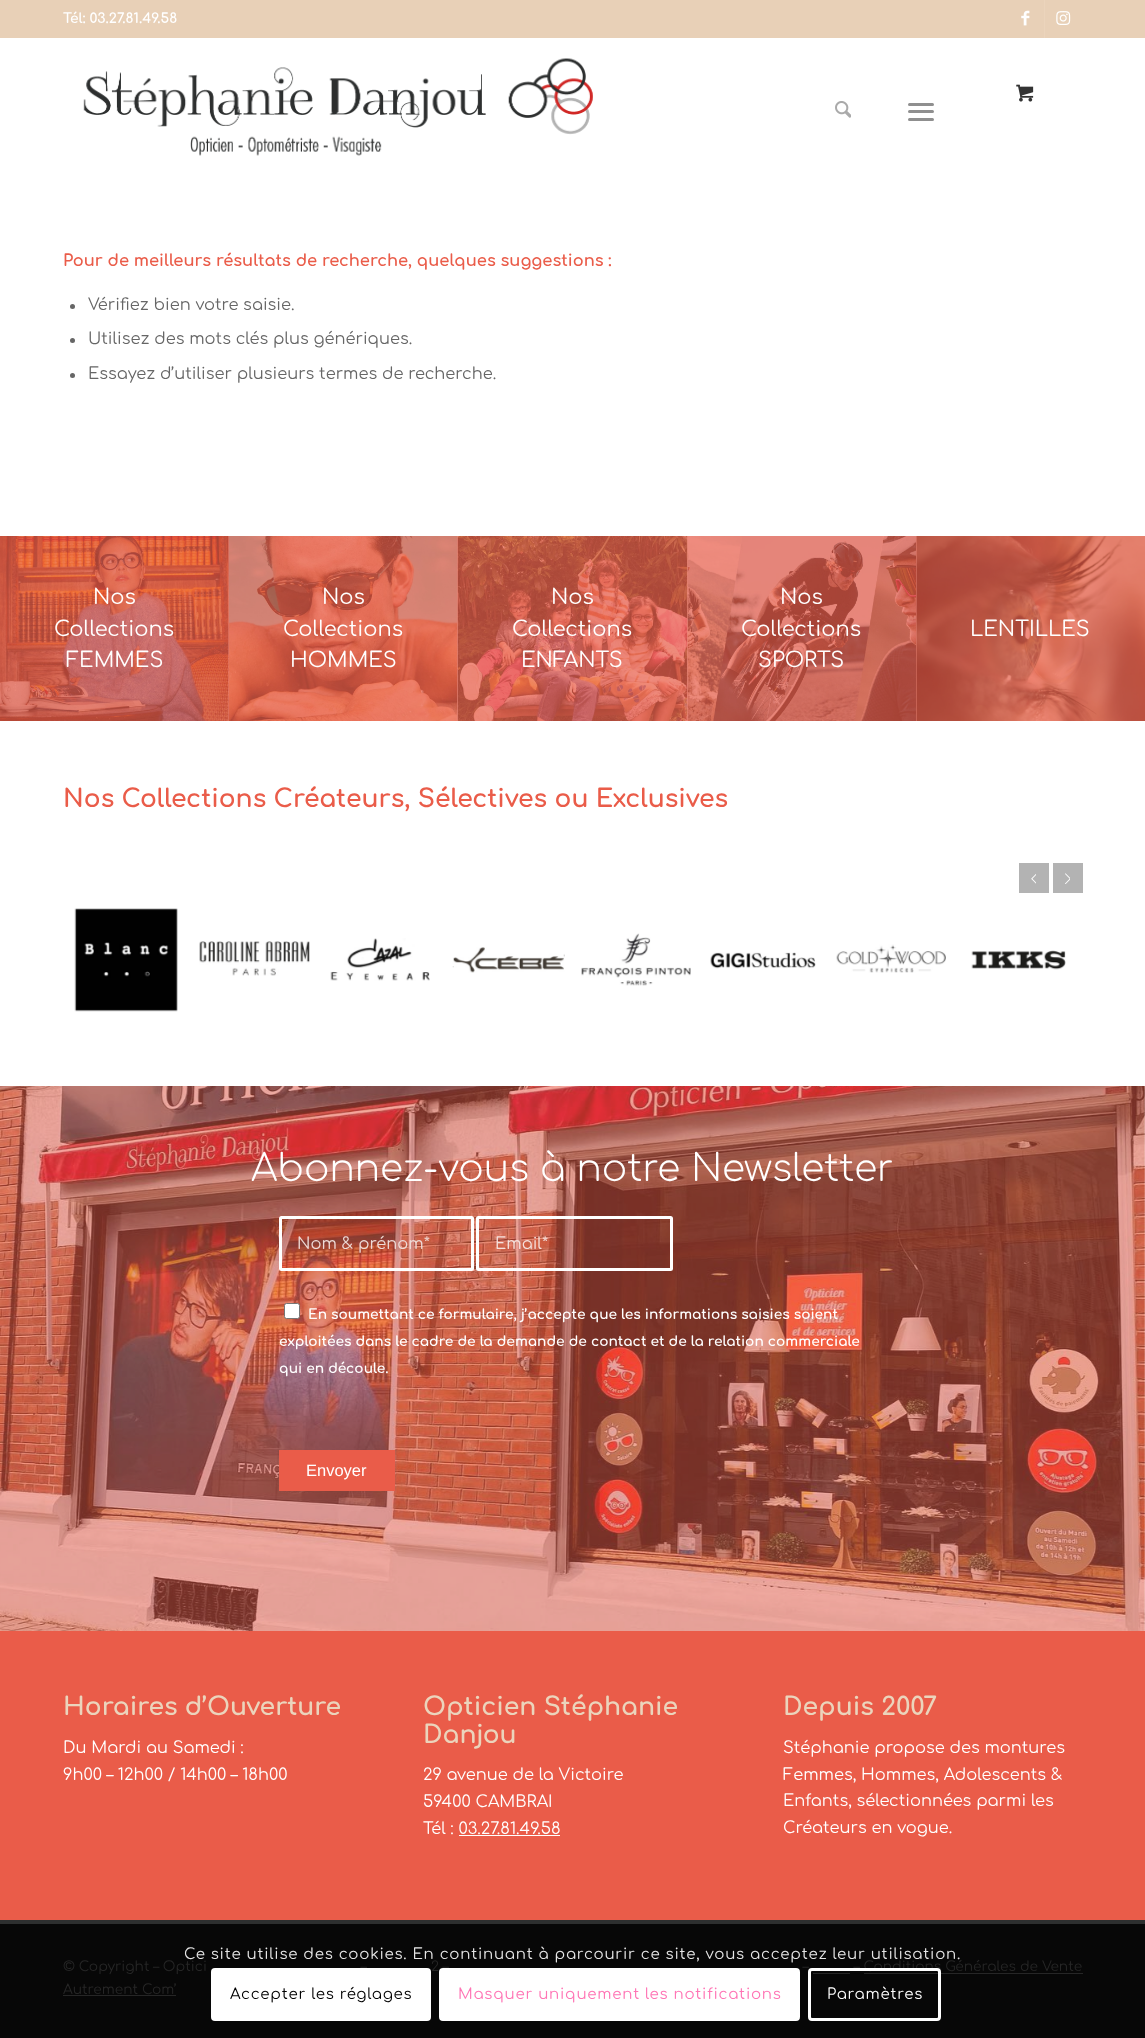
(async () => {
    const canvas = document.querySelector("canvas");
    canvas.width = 1145;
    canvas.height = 2038;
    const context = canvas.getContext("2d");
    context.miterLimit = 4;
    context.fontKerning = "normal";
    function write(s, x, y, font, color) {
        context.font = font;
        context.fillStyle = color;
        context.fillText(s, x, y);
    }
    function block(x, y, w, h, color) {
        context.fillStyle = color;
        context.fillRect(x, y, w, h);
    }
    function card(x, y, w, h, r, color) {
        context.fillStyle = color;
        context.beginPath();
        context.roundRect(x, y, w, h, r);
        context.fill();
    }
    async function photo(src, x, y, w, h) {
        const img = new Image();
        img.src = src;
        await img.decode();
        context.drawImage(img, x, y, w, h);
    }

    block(0, 0, 1145, 2038, "rgb(255, 255, 255)");
    block(0, 0, 1145, 38, "rgb(232, 208, 183)");
    write("Tél: 03.27.81.49.58", 63, 23, "bold 13.75px Comfortaa", "rgb(255, 255, 255)");
    block(1044, 0, 1, 38, "rgb(235, 212, 188)");
    await photo("media/1.png", 1021, 10, 9, 16);
    await photo("media/2.png", 1056, 11, 15, 14);
    await photo("media/3.png", 83, 58, 510, 98);
    await photo("media/4.png", 1016, 84, 18, 18);
    await photo("media/5.png", 835, 101, 16, 17);
    card(908, 110, 26, 3, 1.5, "rgb(143, 143, 143)");
    card(908, 103, 26, 3, 1.5, "rgb(143, 143, 143)");
    card(908, 118, 26, 3, 1.5, "rgb(143, 143, 143)");
    write("Pour de meilleurs résultats de recherche, quelques suggestions :", 63, 266, "bold 16.25px Comfortaa", "rgb(234, 92, 73)");
    context.fillStyle = "rgb(102, 102, 102)";
    context.beginPath();
    context.arc(72.5, 306.5, 2.5, 0, Math.PI * 2);
    context.fill();
    write("Vérifiez bien votre saisie.", 88, 310, "16.25px Comfortaa", "rgb(102, 102, 102)");
    context.beginPath();
    context.arc(72.5, 340.5, 2.5, 0, Math.PI * 2);
    context.fill();
    write("Utilisez des mots clés plus génériques.", 88, 344, "16.25px Comfortaa", "rgb(102, 102, 102)");
    context.beginPath();
    context.arc(72.5, 375.5, 2.5, 0, Math.PI * 2);
    context.fill();
    write("Essayez d’utiliser plusieurs termes de recherche.", 88, 379, "16.25px Comfortaa", "rgb(102, 102, 102)");
    await photo("media/6.png", 0, 536, 229, 185);
    await photo("media/7.png", 228, 536, 230, 185);
    block(0, 536, 229, 185, "rgba(234, 92, 73, 0.7)");
    write("Nos", 93, 604, "21px Comfortaa", "rgb(255, 255, 255)");
    write("Collections", 54, 636, "21px Comfortaa", "rgb(255, 255, 255)");
    write("FEMMES", 66, 667, "21px Comfortaa", "rgb(255, 255, 255)");
    await photo("media/8.png", 457, 536, 231, 185);
    block(229, 536, 229, 185, "rgba(234, 92, 73, 0.7)");
    write("Nos", 322, 604, "21px Comfortaa", "rgb(255, 255, 255)");
    write("Collections", 283, 636, "21px Comfortaa", "rgb(255, 255, 255)");
    write("HOMMES", 290, 667, "21px Comfortaa", "rgb(255, 255, 255)");
    await photo("media/9.png", 687, 536, 230, 185);
    block(458, 536, 230, 185, "rgba(234, 92, 73, 0.7)");
    write("Nos", 551, 604, "21px Comfortaa", "rgb(255, 255, 255)");
    write("Collections", 512, 636, "21px Comfortaa", "rgb(255, 255, 255)");
    write("ENFANTS", 521, 667, "21px Comfortaa", "rgb(255, 255, 255)");
    write("Nos", 780, 604, "21px Comfortaa", "rgb(255, 255, 255)");
    write("Collections", 741, 636, "21px Comfortaa", "rgb(255, 255, 255)");
    write("SPORTS", 758, 667, "21px Comfortaa", "rgb(255, 255, 255)");
    await photo("media/10.png", 916, 536, 229, 185);
    block(916, 536, 229, 185, "rgba(234, 92, 73, 0.7)");
    write("LENTILLES", 970, 636, "21px Comfortaa", "rgb(255, 255, 255)");
    write("Nos Collections Créateurs, Sélectives ou Exclusives", 63, 807, "bold 25px Comfortaa", "rgb(234, 92, 73)");
    block(1019, 863, 30, 30, "rgb(179, 179, 179)");
    await photo("media/11.png", 1031, 874, 5, 10);
    block(1053, 863, 30, 30, "rgb(179, 179, 179)");
    await photo("media/12.png", 1065, 873, 5, 11);
    await photo("media/13.png", 74, 908, 104, 104);
    await photo("media/14.png", 199, 941, 111, 35);
    await photo("media/15.png", 330, 938, 100, 43);
    await photo("media/16.png", 452, 947, 113, 26);
    await photo("media/17.png", 581, 933, 110, 53);
    await photo("media/18.png", 710, 952, 106, 17);
    await photo("media/19.png", 836, 944, 110, 29);
    await photo("media/20.png", 971, 950, 95, 20);
    await photo("media/21.png", 0, 1086, 1145, 545);
    write("Abonnez-vous à notre Newsletter", 251, 1181, "300 37.5px Comfortaa", "rgb(255, 255, 255)");
    context.beginPath();
    context.roundRect(280.5, 1217.5, 192, 52, 1);
    context.strokeStyle = "rgb(255, 255, 255)";
    context.lineWidth = 3;
    context.stroke();
    write("Nom & prénom*", 297, 1249, "16.25px Comfortaa", "rgb(238, 220, 216)");
    context.beginPath();
    context.roundRect(477.5, 1217.5, 194, 52, 1);
    context.stroke();
    write("Email*", 495, 1249, "16.25px Comfortaa", "rgb(245, 225, 221)");
    context.fillStyle = "rgb(255, 255, 255)";
    context.beginPath();
    context.roundRect(284.5, 1303.5, 15, 15, 2);
    context.fill();
    context.strokeStyle = "rgb(118, 118, 118)";
    context.lineWidth = 1;
    context.stroke();
    write("En soumettant ce formulaire, j’accepte que les informations saisies soient", 308, 1319, "bold 13.75px Comfortaa", "rgb(255, 255, 255)");
    write("exploitées dans le cadre de la demande de contact et de la relation commerciale", 279, 1346, "bold 13.75px Comfortaa", "rgb(255, 255, 255)");
    write("qui en découle.", 279, 1373, "bold 13.75px Comfortaa", "rgb(255, 255, 255)");
    block(279, 1450, 116, 41, "rgb(234, 92, 73)");
    write("Envoyer", 306, 1476, "16.5px Liberation Sans", "rgb(255, 255, 255)");
    block(0, 1631, 1145, 289, "rgb(234, 92, 73)");
    write("Horaires d’Ouverture", 63, 1715, "bold 25px Comfortaa", "rgb(235, 212, 188)");
    write("Du Mardi au Samedi :", 63, 1753, "16.25px Comfortaa", "rgb(255, 255, 255)");
    write("9h00 – 12h00 / 14h00 – 18h00", 63, 1780, "16.25px Comfortaa", "rgb(255, 255, 255)");
    write("Opticien Stéphanie", 423, 1715, "bold 25px Comfortaa", "rgb(235, 212, 188)");
    write("Danjou", 423, 1743, "bold 25px Comfortaa", "rgb(235, 212, 188)");
    write("29 avenue de la Victoire", 423, 1780, "16.25px Comfortaa", "rgb(255, 255, 255)");
    write("59400 CAMBRAI", 423, 1807, "16.25px Comfortaa", "rgb(255, 255, 255)");
    write("Tél : 03.27.81.49.58", 423, 1834, "16.25px Comfortaa", "rgb(255, 255, 255)");
    block(459, 1835, 101, 1, "rgb(255, 255, 255)");
    write("Depuis 2007", 783, 1715, "bold 25px Comfortaa", "rgb(235, 212, 188)");
    write("Stéphanie propose des montures", 783, 1753, "16.25px Comfortaa", "rgb(255, 255, 255)");
    write("Femmes, Hommes, Adolescents &", 783, 1780, "16.25px Comfortaa", "rgb(255, 255, 255)");
    write("Enfants, sélectionnées parmi les", 783, 1806, "16.25px Comfortaa", "rgb(255, 255, 255)");
    write("Créateurs en vogue.", 783, 1833, "16.25px Comfortaa", "rgb(255, 255, 255)");
    block(0, 1920, 1145, 4, "rgb(45, 47, 47)");
    block(0, 1924, 1145, 114, "rgb(7, 7, 7)");
    write("© Copyright – Optici", 63, 1971, "13.75px Comfortaa", "rgb(38, 38, 38)");
    write("–", 361, 1971, "13.75px Comfortaa", "rgb(38, 38, 38)");
    write("2 –", 431, 1971, "13.75px Comfortaa", "rgb(38, 38, 38)");
    write("Autrement Com’", 63, 1994, "13.75px Comfortaa", "rgb(38, 38, 38)");
    block(63, 1995, 113, 1, "rgb(38, 38, 38)");
    write("–", 803, 1971, "13.75px Comfortaa", "rgb(38, 38, 38)");
    block(813, 1973, 37, 1, "rgb(38, 38, 38)");
    write("– Conditions Générales de Vente", 854, 1971, "13.75px Comfortaa", "rgb(38, 38, 38)");
    block(864, 1973, 219, 1, "rgb(38, 38, 38)");
    context.letterSpacing = "0.75px";
    write("Ce site utilise des cookies. En continuant à parcourir ce site, vous acceptez leur utilisation.", 184, 1959, "15px Comfortaa", "rgb(230, 230, 230)");
    card(211, 1968, 220, 53, 4, "rgb(255, 255, 255)");
    write("Accepter les réglages", 230, 1999, "15px Comfortaa", "rgb(0, 0, 0)");
    context.fillStyle = "rgb(255, 255, 255)";
    context.beginPath();
    context.roundRect(440.5, 1969.5, 358, 50, 2.5);
    context.fill();
    context.strokeStyle = "rgb(255, 255, 255)";
    context.lineWidth = 3;
    context.stroke();
    write("Masquer uniquement les notifications", 458, 1999, "15px Comfortaa", "rgb(255, 117, 181)");
    context.beginPath();
    context.roundRect(809.5, 1969.5, 130, 50, 2.5);
    context.stroke();
    write("Paramètres", 827, 1999, "15px Comfortaa", "rgb(255, 255, 255)");
})();
